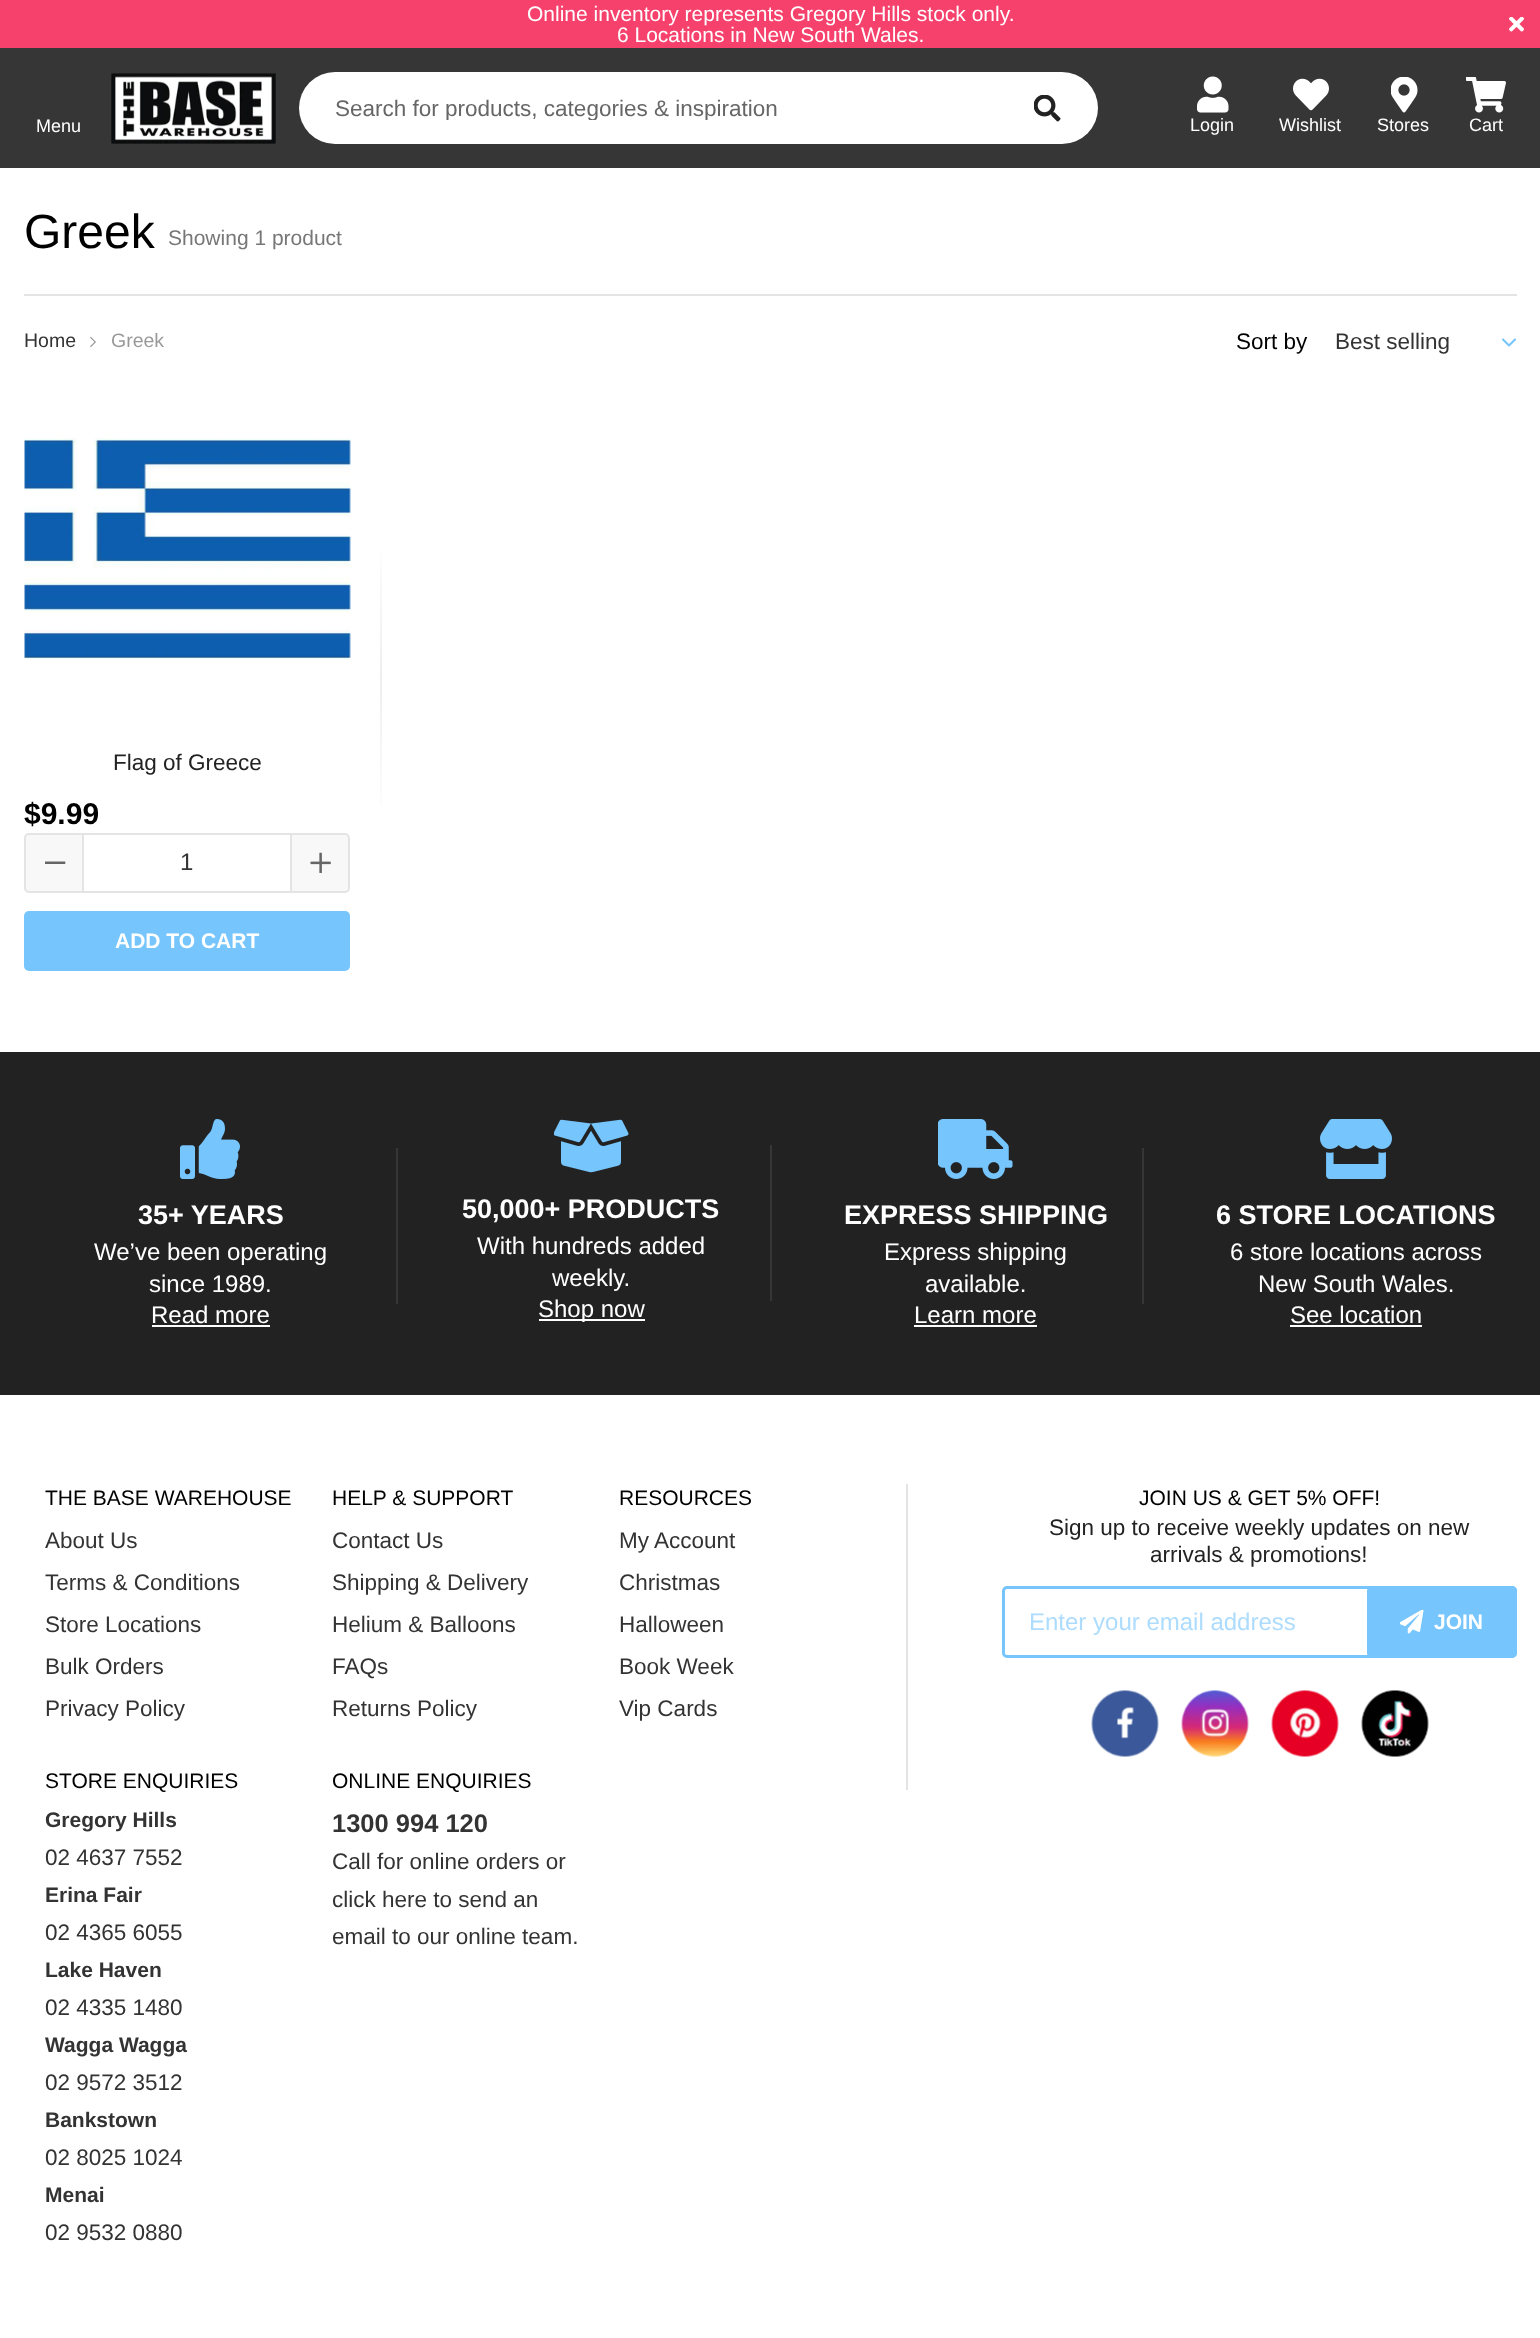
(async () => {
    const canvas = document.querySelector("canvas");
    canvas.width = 1540;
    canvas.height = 2338;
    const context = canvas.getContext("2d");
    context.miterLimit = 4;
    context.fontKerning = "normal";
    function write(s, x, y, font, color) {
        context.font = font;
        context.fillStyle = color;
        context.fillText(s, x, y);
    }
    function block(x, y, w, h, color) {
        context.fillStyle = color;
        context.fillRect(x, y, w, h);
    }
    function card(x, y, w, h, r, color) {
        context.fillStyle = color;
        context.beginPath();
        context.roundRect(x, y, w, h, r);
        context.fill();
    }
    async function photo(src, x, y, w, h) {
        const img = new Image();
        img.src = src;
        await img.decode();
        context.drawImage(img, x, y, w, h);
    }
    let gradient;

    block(0, 0, 1540, 2338, "rgb(255, 255, 255)");
    block(0, 0, 1540, 48, "rgb(246, 65, 108)");
    write("Online inventory represents Gregory Hills stock only.", 527, 21, "21px Liberation Sans", "rgb(255, 255, 255)");
    write("6 Locations in New South Wales.", 617, 42, "21px Liberation Sans", "rgb(255, 255, 255)");
    await photo("media/1.png", 1509, 17, 15, 15);
    block(0, 48, 1540, 120, "rgb(54, 54, 55)");
    card(299, 72, 799, 72, 36, "rgb(255, 255, 255)");
    context.save();
    context.beginPath();
    context.rect(336, 95, 725, 25);
    context.clip();
    write("Search for products, categories & inspiration", 335, 116, "22.5px Liberation Sans", "rgb(102, 102, 102)");
    context.restore();
    await photo("media/2.png", 1034, 95, 27, 27);
    write("Menu", 36, 132, "18px Liberation Sans", "rgb(255, 255, 255)");
    await photo("media/3.png", 111, 73, 165, 71);
    await photo("media/4.png", 1197, 76, 32, 37);
    write("Login", 1190, 131, "18px Liberation Sans", "rgb(255, 255, 255)");
    await photo("media/5.png", 1293, 78, 36, 33);
    write("Wishlist", 1279, 131, "18px Liberation Sans", "rgb(255, 255, 255)");
    await photo("media/6.png", 1391, 77, 27, 36);
    write("Stores", 1377, 131, "18px Liberation Sans", "rgb(255, 255, 255)");
    await photo("media/7.png", 1466, 77, 40, 36);
    write("Cart", 1469, 131, "18px Liberation Sans", "rgb(255, 255, 255)");
    write("Greek", 24, 248, "48px Liberation Sans", "rgb(0, 0, 0)");
    write("Showing 1 product", 168, 245, "21px Liberation Sans", "rgb(119, 119, 119)");
    block(24, 294, 1493, 2, "rgb(228, 228, 228)");
    write("Home", 24, 347, "19.5px Liberation Sans", "rgb(51, 51, 51)");
    await photo("media/8.png", 90, 336, 6, 12);
    write("Greek", 111, 347, "19.5px Liberation Sans", "rgb(153, 153, 153)");
    write("Sort by", 1236, 349, "22.5px Liberation Sans", "rgb(0, 0, 0)");
    write("Best selling", 1335, 349, "22.5px Liberation Sans", "rgb(51, 51, 51)");
    await photo("media/9.png", 1502, 338, 14, 9);
    await photo("media/10.png", 24, 438, 327, 222);
    write("Flag of Greece", 113, 770, "22.5px Liberation Sans", "rgb(34, 34, 34)");
    gradient = context.createLinearGradient(380, 528, 380, 828);
    gradient.addColorStop(0, "rgb(255, 255, 255)");
    gradient.addColorStop(0.5, "rgb(238, 238, 238)");
    gradient.addColorStop(1, "rgb(255, 255, 255)");
    context.fillStyle = gradient;
    context.fillRect(380, 550, 2, 256);
    write("$9.99", 24, 824, "bold 30px Liberation Sans", "rgb(0, 0, 0)");
    context.fillStyle = "rgb(248, 248, 248)";
    context.beginPath();
    context.roundRect(25, 834, 58, 58, [4, 0, 0, 4]);
    context.fill();
    context.strokeStyle = "rgb(228, 228, 228)";
    context.lineWidth = 2;
    context.stroke();
    context.fillStyle = "rgb(102, 102, 102)";
    context.beginPath();
    context.moveTo(65, 861.5);
    context.bezierCurveTo(65.5, 861.5, 65.5, 864, 65, 864);
    context.lineTo(45, 864);
    context.lineTo(45, 862);
    context.lineTo(45, 861.5);
    context.closePath();
    context.fill();
    block(84, 833, 206, 2, "rgb(228, 228, 228)");
    block(84, 891, 206, 2, "rgb(228, 228, 228)");
    write("1", 180, 870, "24px Liberation Sans", "rgb(51, 51, 51)");
    context.fillStyle = "rgb(248, 248, 248)";
    context.beginPath();
    context.roundRect(291, 834, 58, 58, [0, 4, 4, 0]);
    context.fill();
    context.stroke();
    await photo("media/11.png", 310, 852, 21, 21);
    card(24, 911, 326, 60, 5, "rgb(118, 197, 253)");
    write("ADD TO CART", 115, 948, "bold 21px Liberation Sans", "rgb(255, 255, 255)");
    block(0, 1052, 1540, 343, "rgb(34, 34, 34)");
    await photo("media/12.png", 180, 1119, 60, 60);
    block(396, 1148, 2, 156, "rgb(54, 54, 54)");
    write("35+ YEARS", 138, 1224, "bold 27px Liberation Sans", "rgb(255, 255, 255)");
    write("We’ve been operating", 94, 1260, "24px Liberation Sans", "rgb(255, 255, 255)");
    write("since 1989.", 149, 1292, "24px Liberation Sans", "rgb(255, 255, 255)");
    write("Read more", 151, 1323, "24px Liberation Sans", "rgb(255, 255, 255)");
    block(152, 1325, 118, 2, "rgb(255, 255, 255)");
    await photo("media/13.png", 554, 1119, 75, 54);
    block(770, 1145, 2, 156, "rgb(54, 54, 54)");
    write("50,000+ PRODUCTS", 462, 1218, "bold 27px Liberation Sans", "rgb(255, 255, 255)");
    write("With hundreds added", 477, 1254, "24px Liberation Sans", "rgb(255, 255, 255)");
    write("weekly.", 552, 1286, "24px Liberation Sans", "rgb(255, 255, 255)");
    block(539, 1319, 106, 2, "rgb(255, 255, 255)");
    write("Shop now", 538, 1317, "24px Liberation Sans", "rgb(255, 255, 255)");
    await photo("media/14.png", 938, 1119, 75, 60);
    block(1142, 1148, 2, 156, "rgb(54, 54, 54)");
    write("EXPRESS SHIPPING", 844, 1224, "bold 27px Liberation Sans", "rgb(255, 255, 255)");
    write("Express shipping", 884, 1260, "24px Liberation Sans", "rgb(255, 255, 255)");
    write("available.", 925, 1292, "24px Liberation Sans", "rgb(255, 255, 255)");
    write("Learn more", 914, 1323, "24px Liberation Sans", "rgb(255, 255, 255)");
    block(914, 1325, 123, 2, "rgb(255, 255, 255)");
    await photo("media/15.png", 1320, 1119, 72, 60);
    write("6 STORE LOCATIONS", 1216, 1224, "bold 27px Liberation Sans", "rgb(255, 255, 255)");
    write("6 store locations across", 1230, 1260, "24px Liberation Sans", "rgb(255, 255, 255)");
    write("New South Wales.", 1258, 1292, "24px Liberation Sans", "rgb(255, 255, 255)");
    write("See location", 1290, 1323, "24px Liberation Sans", "rgb(255, 255, 255)");
    block(1290, 1325, 132, 2, "rgb(255, 255, 255)");
    write("THE BASE WAREHOUSE", 45, 1505, "21px Liberation Sans", "rgb(0, 0, 0)");
    write("About Us", 45, 1548, "22.5px Liberation Sans", "rgb(51, 51, 51)");
    write("Terms & Conditions", 45, 1590, "22.5px Liberation Sans", "rgb(51, 51, 51)");
    write("Store Locations", 45, 1632, "22.5px Liberation Sans", "rgb(51, 51, 51)");
    write("Bulk Orders", 45, 1674, "22.5px Liberation Sans", "rgb(51, 51, 51)");
    write("Privacy Policy", 45, 1716, "22.5px Liberation Sans", "rgb(51, 51, 51)");
    write("HELP & SUPPORT", 332, 1505, "21px Liberation Sans", "rgb(0, 0, 0)");
    write("Contact Us", 332, 1548, "22.5px Liberation Sans", "rgb(51, 51, 51)");
    write("Shipping & Delivery", 332, 1590, "22.5px Liberation Sans", "rgb(51, 51, 51)");
    write("Helium & Balloons", 332, 1632, "22.5px Liberation Sans", "rgb(51, 51, 51)");
    write("FAQs", 332, 1674, "22.5px Liberation Sans", "rgb(51, 51, 51)");
    write("Returns Policy", 332, 1716, "22.5px Liberation Sans", "rgb(51, 51, 51)");
    write("RESOURCES", 619, 1505, "21px Liberation Sans", "rgb(0, 0, 0)");
    write("My Account", 619, 1548, "22.5px Liberation Sans", "rgb(51, 51, 51)");
    write("Christmas", 619, 1590, "22.5px Liberation Sans", "rgb(51, 51, 51)");
    write("Halloween", 619, 1632, "22.5px Liberation Sans", "rgb(51, 51, 51)");
    write("Book Week", 619, 1674, "22.5px Liberation Sans", "rgb(51, 51, 51)");
    write("Vip Cards", 619, 1716, "22.5px Liberation Sans", "rgb(51, 51, 51)");
    write("STORE ENQUIRIES", 45, 1788, "21px Liberation Sans", "rgb(0, 0, 0)");
    write("Gregory Hills", 45, 1827, "bold 21px Liberation Sans", "rgb(51, 51, 51)");
    write("02 4637 7552", 45, 1865, "22.5px Liberation Sans", "rgb(51, 51, 51)");
    write("Erina Fair", 45, 1902, "bold 21px Liberation Sans", "rgb(51, 51, 51)");
    write("02 4365 6055", 45, 1940, "22.5px Liberation Sans", "rgb(51, 51, 51)");
    write("Lake Haven", 45, 1977, "bold 21px Liberation Sans", "rgb(51, 51, 51)");
    write("02 4335 1480", 45, 2015, "22.5px Liberation Sans", "rgb(51, 51, 51)");
    write("Wagga Wagga", 45, 2052, "bold 21px Liberation Sans", "rgb(51, 51, 51)");
    write("02 9572 3512", 45, 2090, "22.5px Liberation Sans", "rgb(51, 51, 51)");
    write("Bankstown", 45, 2127, "bold 21px Liberation Sans", "rgb(51, 51, 51)");
    write("02 8025 1024", 45, 2165, "22.5px Liberation Sans", "rgb(51, 51, 51)");
    write("Menai", 45, 2202, "bold 21px Liberation Sans", "rgb(51, 51, 51)");
    write("02 9532 0880", 45, 2240, "22.5px Liberation Sans", "rgb(51, 51, 51)");
    write("ONLINE ENQUIRIES", 332, 1788, "21px Liberation Sans", "rgb(0, 0, 0)");
    write("1300 994 120", 332, 1832, "bold 25.5px Liberation Sans", "rgb(51, 51, 51)");
    write("Call for online orders or", 332, 1869, "22.5px Liberation Sans", "rgb(51, 51, 51)");
    write("click here to send an", 332, 1907, "22.5px Liberation Sans", "rgb(51, 51, 51)");
    write("email to our online team.", 332, 1944, "22.5px Liberation Sans", "rgb(51, 51, 51)");
    block(906, 1484, 2, 306, "rgb(228, 228, 228)");
    write("JOIN US & GET 5% OFF!", 1139, 1505, "21px Liberation Sans", "rgb(0, 0, 0)");
    write("Sign up to receive weekly updates on new", 1049, 1535, "22.5px Liberation Sans", "rgb(34, 34, 34)");
    write("arrivals & promotions!", 1150, 1562, "22.5px Liberation Sans", "rgb(34, 34, 34)");
    context.beginPath();
    context.roundRect(1003.5, 1587.5, 512, 69, 3.5);
    context.strokeStyle = "rgb(118, 197, 253)";
    context.lineWidth = 3;
    context.stroke();
    write("Enter your email address", 1029, 1630, "24px Liberation Sans", "rgb(173, 220, 254)");
    card(1367, 1586, 150, 72, 5, "rgb(118, 197, 253)");
    await photo("media/16.png", 1400, 1610, 24, 24);
    write("JOIN", 1434, 1629, "bold 21px Liberation Sans", "rgb(255, 255, 255)");
    await photo("media/17.png", 1091, 1690, 68, 67);
    await photo("media/18.png", 1181, 1690, 68, 67);
    await photo("media/19.png", 1271, 1690, 68, 67);
    await photo("media/20.png", 1361, 1690, 68, 67);
})();
